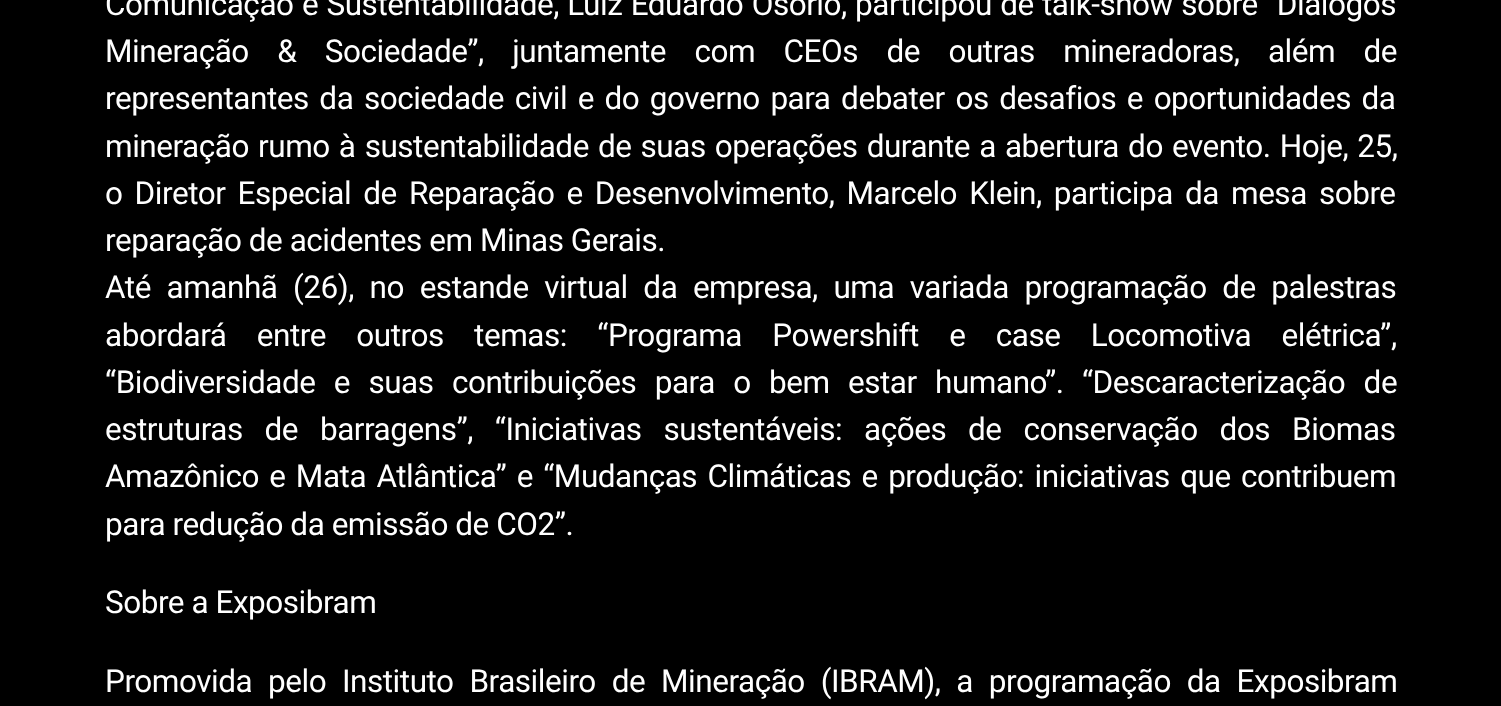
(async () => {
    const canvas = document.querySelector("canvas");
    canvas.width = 1501;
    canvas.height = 706;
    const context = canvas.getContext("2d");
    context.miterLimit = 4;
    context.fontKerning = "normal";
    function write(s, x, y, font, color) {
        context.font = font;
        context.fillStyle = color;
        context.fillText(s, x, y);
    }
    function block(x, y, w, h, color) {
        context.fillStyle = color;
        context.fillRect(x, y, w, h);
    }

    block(0, 0, 1501, 706, "rgb(0, 0, 0)");
    context.letterSpacing = "-0.47px";
    context.wordSpacing = "1px";
    write("Comunicação e Sustentabilidade, Luiz Eduardo Osorio, participou de talk-show sobre “Diálogos", 105, 15, "31.5px Roboto", "rgb(255, 255, 255)");
    context.wordSpacing = "21.1px";
    write("Mineração & Sociedade”, juntamente com CEOs de outras mineradoras, além de", 105, 62, "31.5px Roboto", "rgb(255, 255, 255)");
    context.wordSpacing = "3.25px";
    write("representantes da sociedade civil e do governo para debater os desafios e oportunidades da", 105, 109, "31.5px Roboto", "rgb(255, 255, 255)");
    context.wordSpacing = "1.75px";
    write("mineração rumo à sustentabilidade de suas operações durante a abertura do evento. Hoje, 25,", 105, 157, "31.5px Roboto", "rgb(255, 255, 255)");
    context.wordSpacing = "4.75px";
    write("o Diretor Especial de Reparação e Desenvolvimento, Marcelo Klein, participa da mesa sobre", 105, 204, "31.5px Roboto", "rgb(255, 255, 255)");
    context.wordSpacing = "0px";
    write("reparação de acidentes em Minas Gerais.", 105, 251, "31.5px Roboto", "rgb(255, 255, 255)");
    context.wordSpacing = "8.25px";
    write("Até amanhã (26), no estande virtual da empresa, uma variada programação de palestras", 105, 298, "31.5px Roboto", "rgb(255, 255, 255)");
    context.wordSpacing = "23px";
    write("abordará entre outros temas: “Programa Powershift e case Locomotiva elétrica”,", 105, 346, "31.5px Roboto", "rgb(255, 255, 255)");
    context.wordSpacing = "11px";
    write("“Biodiversidade e suas contribuições para o bem estar humano”. “Descaracterização de", 105, 393, "31.5px Roboto", "rgb(255, 255, 255)");
    context.wordSpacing = "14.5px";
    write("estruturas de barragens”, “Iniciativas sustentáveis: ações de conservação dos Biomas", 105, 440, "31.5px Roboto", "rgb(255, 255, 255)");
    context.wordSpacing = "3px";
    write("Amazônico e Mata Atlântica” e “Mudanças Climáticas e produção: iniciativas que contribuem", 105, 487, "31.5px Roboto", "rgb(255, 255, 255)");
    context.wordSpacing = "0px";
    write("para redução da emissão de CO2”.", 105, 535, "31.5px Roboto", "rgb(255, 255, 255)");
    write("Sobre a Exposibram", 105, 613, "31.5px Roboto", "rgb(255, 255, 255)");
    context.wordSpacing = "8.5px";
    write("Promovida pelo Instituto Brasileiro de Mineração (IBRAM), a programação da Exposibram", 105, 692, "31.5px Roboto", "rgb(255, 255, 255)");
})();
